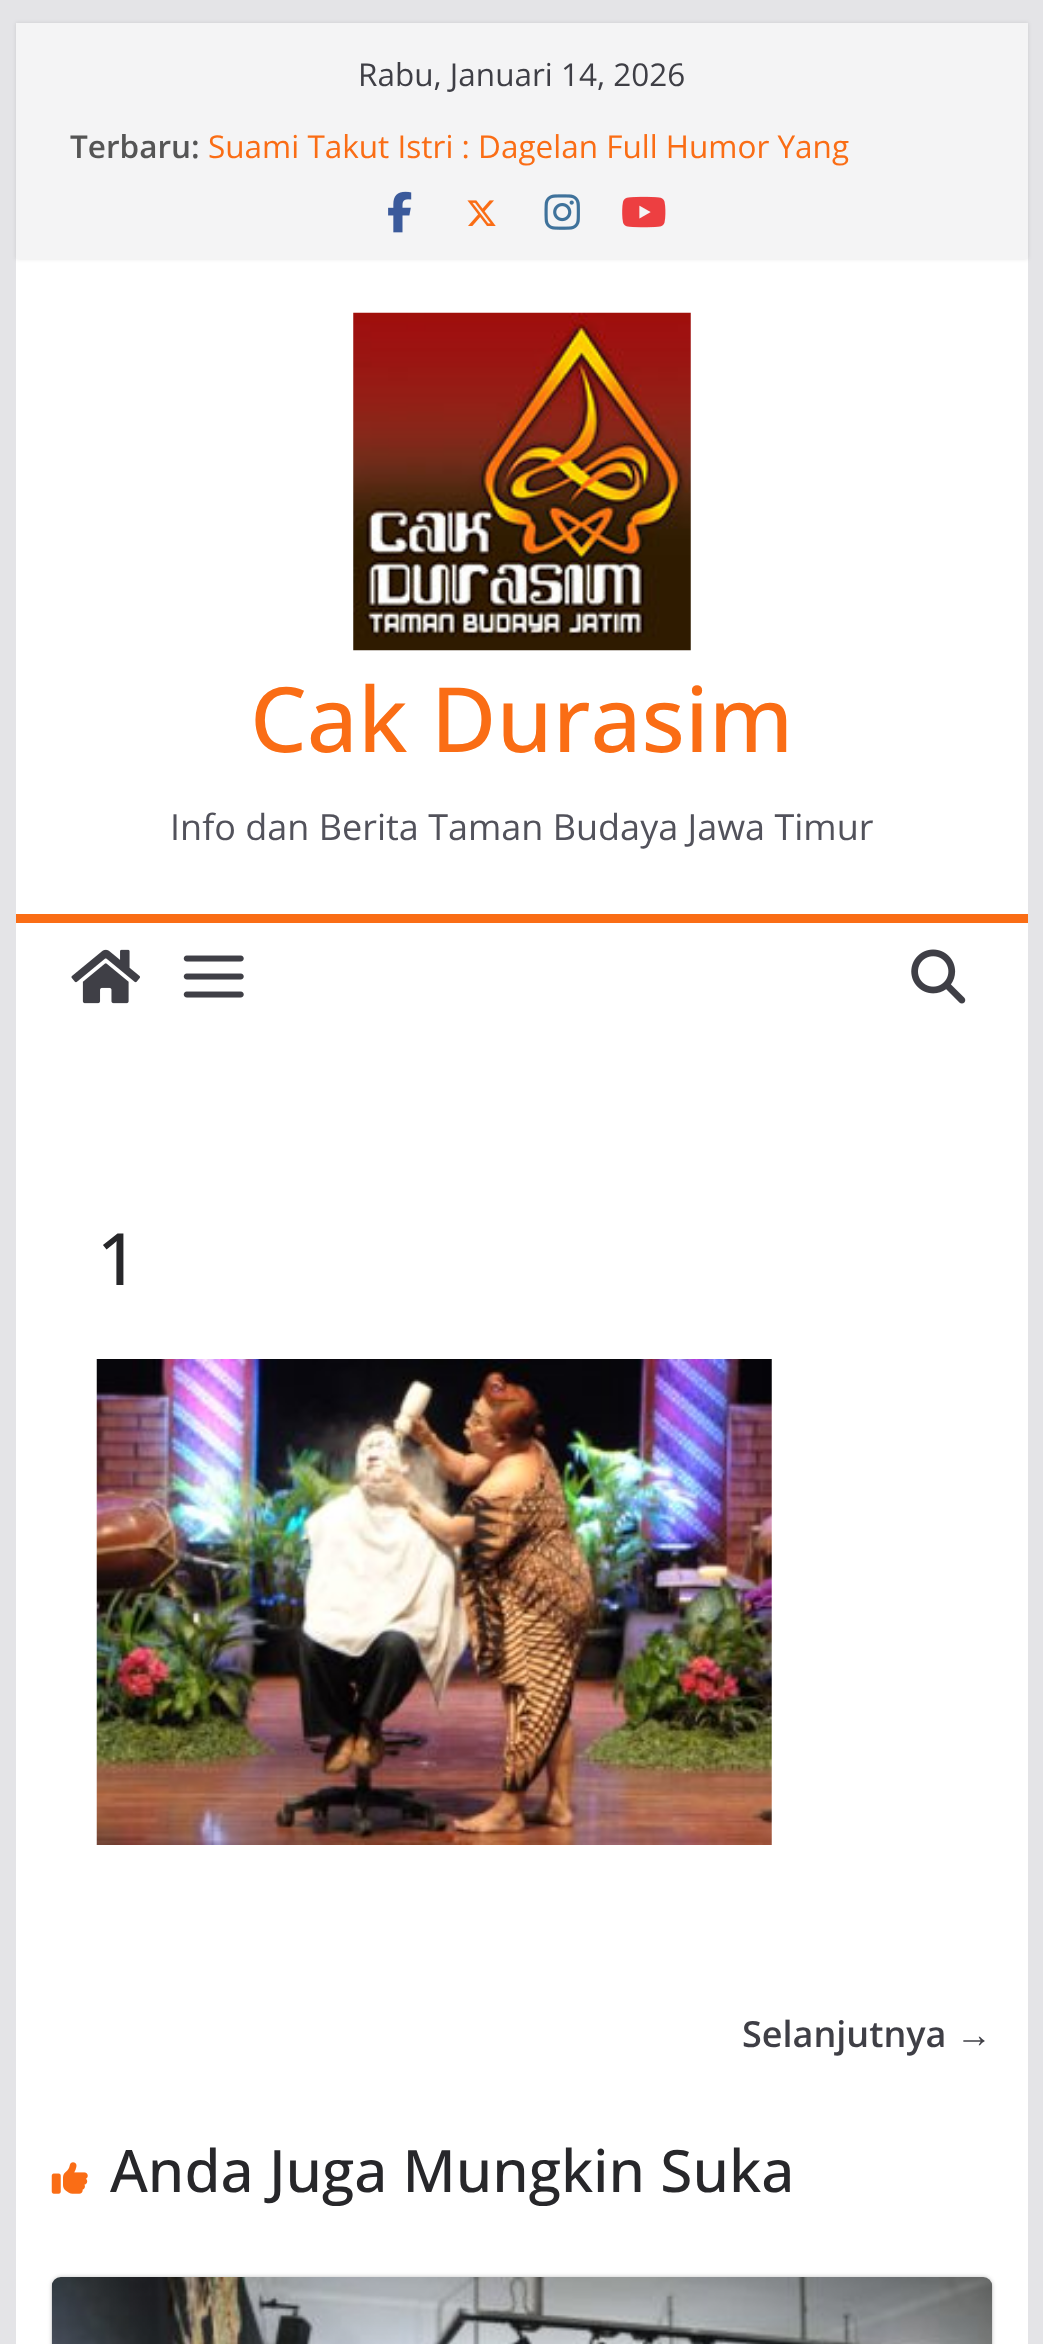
(async () => {
    const canvas = document.querySelector("canvas");
    canvas.width = 1043;
    canvas.height = 2344;
    const context = canvas.getContext("2d");
    context.miterLimit = 4;
    context.fontKerning = "normal";
    function write(s, x, y, font, color) {
        context.font = font;
        context.fillStyle = color;
        context.fillText(s, x, y);
    }
    function block(x, y, w, h, color) {
        context.fillStyle = color;
        context.fillRect(x, y, w, h);
    }
    async function photo(src, x, y, w, h) {
        const img = new Image();
        img.src = src;
        await img.decode();
        context.drawImage(img, x, y, w, h);
    }

    block(0, 0, 1043, 2344, "rgb(228, 228, 231)");
    block(16, 259, 1012, 2085, "rgb(255, 255, 255)");
    context.fillStyle = "rgba(0, 0, 0, 0.1)";
    context.filter = "blur(2px)";
    context.beginPath();
    context.rect(16, 23, 1012, 236);
    context.fill();
    context.filter = "none";
    block(16, 23, 1012, 236, "rgb(244, 244, 245)");
    write("Rabu, Januari 14, 2026", 358, 86, "31.5px Open Sans", "rgb(63, 63, 70)");
    write("Terbaru:", 70, 158, "600 31.5px Open Sans", "rgb(85, 85, 85)");
    write("Suami Takut Istri : Dagelan Full Humor Yang", 208, 158, "31.5px Open Sans", "rgb(250, 109, 21)");
    await photo("media/1.png", 388, 191, 24, 42);
    await photo("media/2.png", 467, 200, 29, 26);
    await photo("media/3.png", 544, 194, 36, 36);
    await photo("media/4.png", 622, 196, 44, 32);
    await photo("media/5.png", 353, 312, 338, 339);
    write("Cak Durasim", 250, 752, "500 90px Open Sans", "rgb(250, 109, 21)");
    write("Info dan Berita Taman Budaya Jawa Timur", 170, 840, "36px Open Sans", "rgb(82, 82, 91)");
    block(16, 914, 1012, 9, "rgb(250, 109, 21)");
    await photo("media/6.png", 71, 949, 69, 55);
    await photo("media/7.png", 183, 955, 61, 43);
    await photo("media/8.png", 911, 949, 55, 55);
    write("1", 97, 1285, "500 72px Open Sans", "rgb(39, 39, 42)");
    await photo("media/9.png", 96, 1359, 676, 486);
    write("Selanjutnya", 742, 2047, "600 36px Open Sans", "rgb(63, 63, 70)");
    write("→", 956, 2047, "bold 36px Liberation Serif", "rgb(63, 63, 70)");
    await photo("media/10.png", 51, 2162, 37, 32);
    write("Anda Juga Mungkin Suka", 110, 2192, "500 58.5px Open Sans", "rgb(39, 39, 42)");
    context.fillStyle = "rgba(0, 0, 0, 0.24)";
    context.filter = "blur(2px)";
    context.beginPath();
    context.roundRect(52, 2277, 940, 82, 9);
    context.fill();
    context.filter = "none";
    await photo("media/11.png", 51, 2277, 942, 67);
})();
